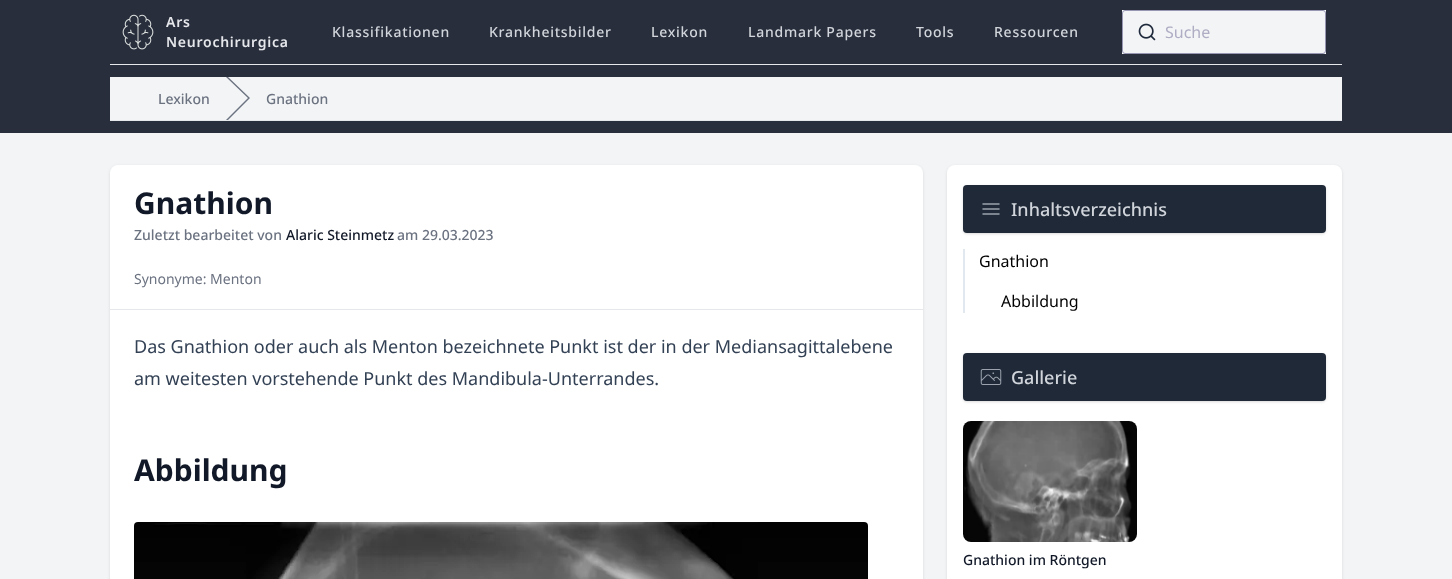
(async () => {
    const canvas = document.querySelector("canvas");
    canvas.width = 1452;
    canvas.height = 579;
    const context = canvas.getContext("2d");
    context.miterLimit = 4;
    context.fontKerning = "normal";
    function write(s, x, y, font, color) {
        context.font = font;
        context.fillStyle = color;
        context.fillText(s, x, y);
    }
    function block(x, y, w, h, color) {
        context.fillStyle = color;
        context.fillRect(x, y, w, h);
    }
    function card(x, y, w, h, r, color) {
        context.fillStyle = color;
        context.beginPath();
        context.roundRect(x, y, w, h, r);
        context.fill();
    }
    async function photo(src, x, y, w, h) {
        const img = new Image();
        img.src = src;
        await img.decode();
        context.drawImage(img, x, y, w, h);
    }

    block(0, 0, 1452, 579, "rgb(243, 244, 246)");
    block(0, 0, 1452, 133, "rgb(40, 46, 60)");
    await photo("media/1.png", 122, 14, 32, 36);
    context.letterSpacing = "0.75px";
    write("Ars", 166, 27, "600 14px Noto Sans", "rgb(229, 231, 235)");
    write("Neurochirurgica", 166, 47, "600 14px Noto Sans", "rgb(229, 231, 235)");
    write("Klassifikationen", 332, 37, "500 14px Noto Sans", "rgb(209, 213, 219)");
    write("Krankheitsbilder", 489, 37, "500 14px Noto Sans", "rgb(209, 213, 219)");
    write("Lexikon", 651, 37, "500 14px Noto Sans", "rgb(209, 213, 219)");
    write("Landmark Papers", 748, 37, "500 14px Noto Sans", "rgb(209, 213, 219)");
    write("Tools", 916, 37, "500 14px Noto Sans", "rgb(209, 213, 219)");
    write("Ressourcen", 994, 37, "500 14px Noto Sans", "rgb(209, 213, 219)");
    block(1122, 10, 204, 44, "rgb(255, 255, 255)");
    card(1122, 10, 204, 44, 3, "rgb(243, 244, 246)");
    context.beginPath();
    context.roundRect(1122.5, 10.5, 203, 43, 2.5);
    context.strokeStyle = "rgba(128, 126, 163, 0.8)";
    context.stroke();
    await photo("media/2.png", 1138, 23, 18, 18);
    context.letterSpacing = "0px";
    write("Suche", 1165, 38, "16px Noto Sans", "rgb(174, 173, 196)");
    block(110, 64, 1232, 1, "rgb(229, 231, 235)");
    block(110, 77, 1232, 43, "rgb(243, 244, 246)");
    block(110, 120, 1232, 1, "rgb(229, 231, 235)");
    write("Lexikon", 158, 104, "500 14px Noto Sans", "rgb(107, 114, 128)");
    context.beginPath();
    context.moveTo(226, 77);
    context.lineTo(248, 98);
    context.lineTo(226, 120);
    context.lineTo(228, 120);
    context.lineTo(250, 98);
    context.lineTo(228, 77);
    context.closePath();
    context.fill();
    write("Gnathion", 266, 104, "500 14px Noto Sans", "rgb(107, 114, 128)");
    context.fillStyle = "rgba(0, 0, 0, 0.1)";
    context.filter = "blur(1.5px)";
    context.beginPath();
    context.roundRect(110, 166, 813, 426, 8);
    context.fill();
    context.filter = "none";
    card(110, 165, 813, 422, 8, "rgb(255, 255, 255)");
    write("Gnathion", 134, 214, "bold 30px Noto Sans", "rgb(17, 24, 39)");
    write("Zuletzt bearbeitet von", 134, 240, "500 14px Noto Sans", "rgb(107, 114, 128)");
    write("Alaric Steinmetz", 286, 240, "500 14px Noto Sans", "rgb(17, 24, 39)");
    write("am 29.03.2023", 397, 240, "500 14px Noto Sans", "rgb(107, 114, 128)");
    write("Synonyme: Menton", 134, 284, "14px Noto Sans", "rgb(107, 114, 128)");
    block(110, 309, 813, 1, "rgb(229, 231, 235)");
    write("Das Gnathion oder auch als Menton bezeichnete Punkt ist der in der Mediansagittalebene", 134, 353, "18px Noto Sans", "rgb(51, 65, 85)");
    write("am weitesten vorstehende Punkt des Mandibula-Unterrandes.", 134, 385, "18px Noto Sans", "rgb(51, 65, 85)");
    write("Abbildung", 134, 481, "bold 30px Noto Sans", "rgb(17, 24, 39)");
    await photo("media/3.png", 134, 522, 734, 57);
    context.fillStyle = "rgba(0, 0, 0, 0.1)";
    context.filter = "blur(1.5px)";
    context.beginPath();
    context.roundRect(947, 166, 395, 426, 8);
    context.fill();
    context.filter = "none";
    card(947, 165, 395, 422, 8, "rgb(255, 255, 255)");
    context.fillStyle = "rgba(0, 0, 0, 0.1)";
    context.filter = "blur(1px)";
    context.beginPath();
    context.roundRect(964, 187, 361, 46, 3);
    context.fill();
    context.filter = "none";
    context.filter = "blur(1.5px)";
    context.beginPath();
    context.roundRect(963, 186, 363, 48, 4);
    context.fill();
    context.filter = "none";
    card(963, 185, 363, 48, 4, "rgb(31, 41, 55)");
    context.beginPath();
    context.moveTo(983, 204);
    context.lineTo(999, 204);
    context.moveTo(983, 209);
    context.lineTo(999, 209);
    context.moveTo(983, 214);
    context.lineTo(999, 214);
    context.strokeStyle = "rgb(156, 163, 175)";
    context.lineWidth = 1.5;
    context.lineCap = "round";
    context.lineJoin = "round";
    context.stroke();
    write("Inhaltsverzeichnis", 1011, 216, "500 18px Noto Sans", "rgb(209, 213, 219)");
    block(963, 249, 2, 64, "rgb(226, 232, 240)");
    write("Gnathion", 979, 267, "16px Noto Sans", "rgb(0, 0, 0)");
    write("Abbildung", 1001, 307, "16px Noto Sans", "rgb(0, 0, 0)");
    context.fillStyle = "rgba(0, 0, 0, 0.1)";
    context.filter = "blur(1px)";
    context.beginPath();
    context.roundRect(964, 355, 361, 46, 3);
    context.fill();
    context.filter = "none";
    context.filter = "blur(1.5px)";
    context.beginPath();
    context.roundRect(963, 354, 363, 48, 4);
    context.fill();
    context.filter = "none";
    card(963, 353, 363, 48, 4, "rgb(31, 41, 55)");
    await photo("media/4.png", 980, 369, 22, 16);
    write("Gallerie", 1011, 384, "500 18px Noto Sans", "rgb(209, 213, 219)");
    await photo("media/5.png", 963, 421, 174, 121);
    write("Gnathion im Röntgen", 963, 565, "500 14px Noto Sans", "rgb(17, 24, 39)");
})();
